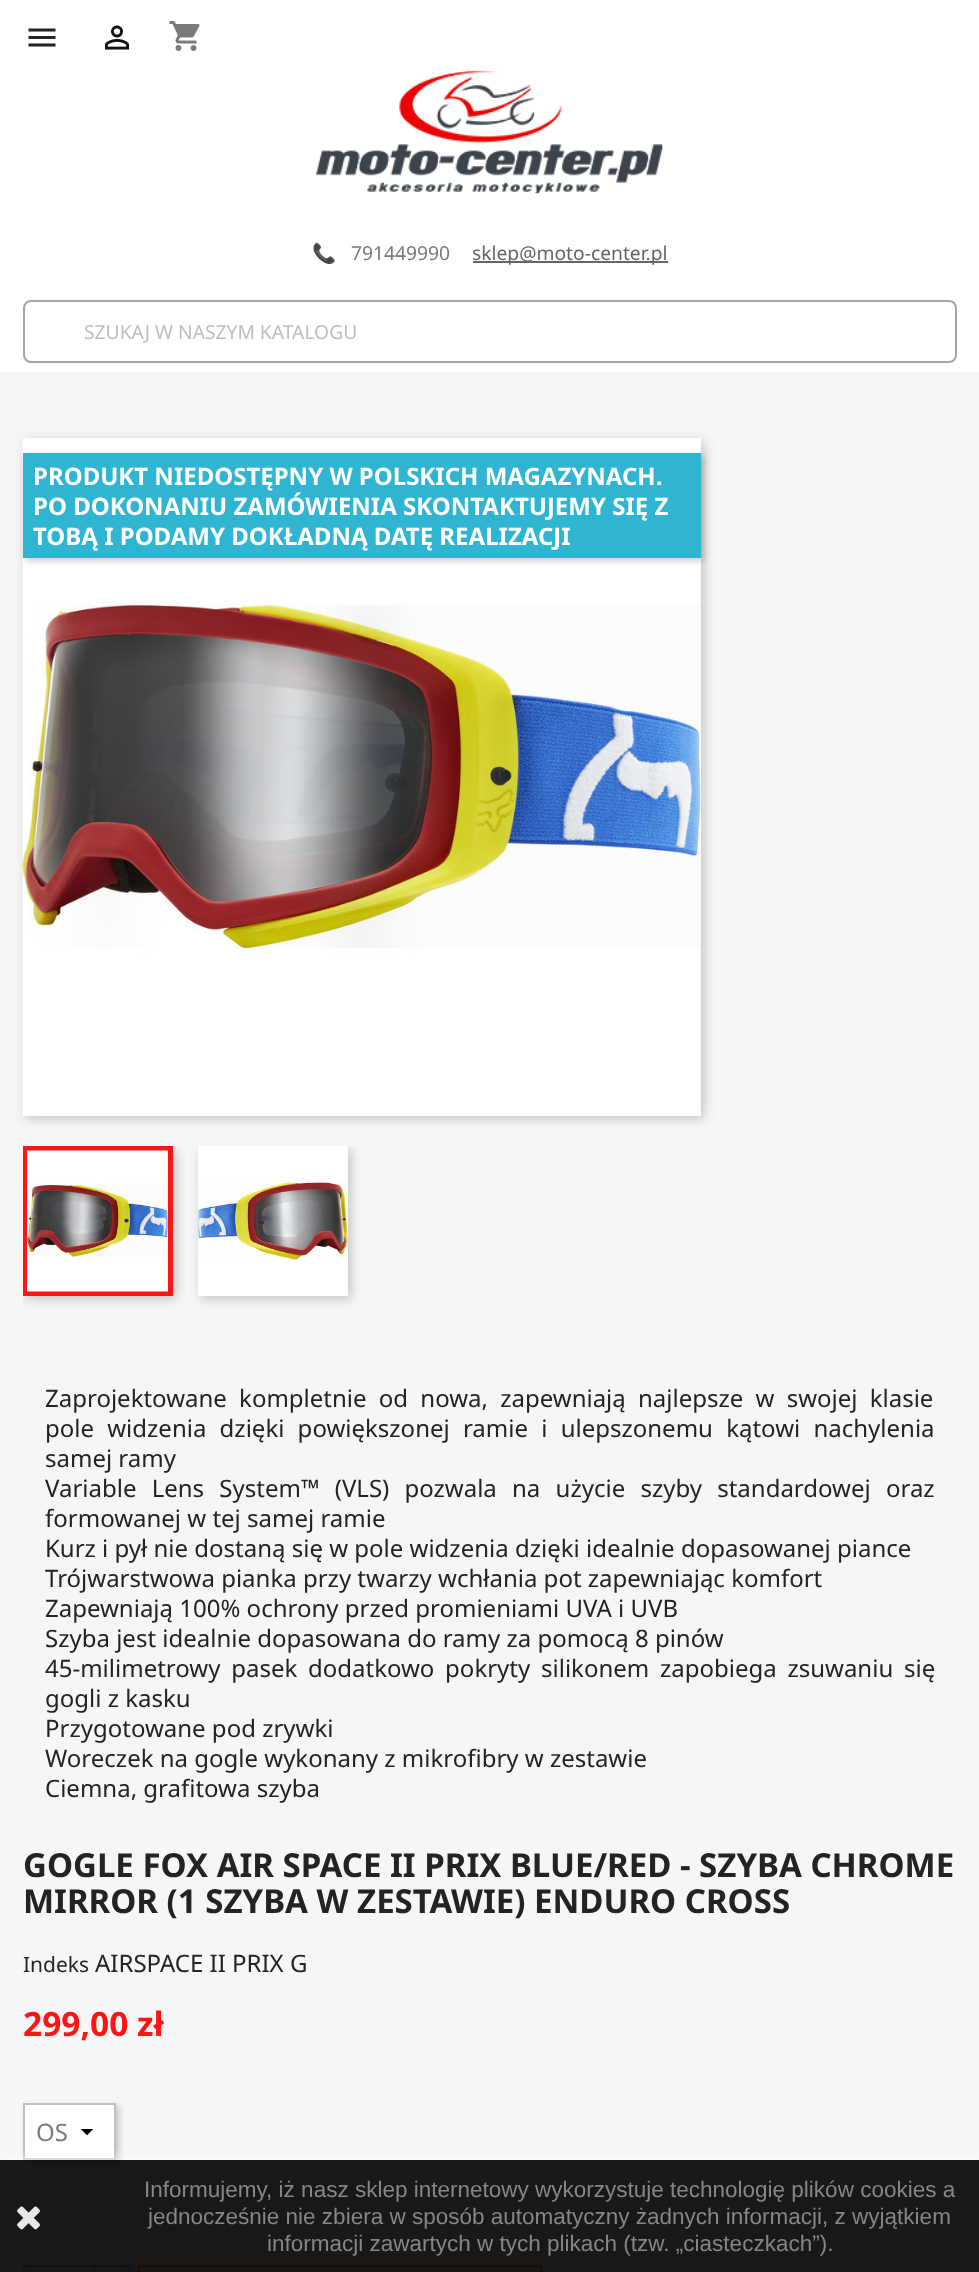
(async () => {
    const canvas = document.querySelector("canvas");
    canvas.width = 979;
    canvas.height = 2272;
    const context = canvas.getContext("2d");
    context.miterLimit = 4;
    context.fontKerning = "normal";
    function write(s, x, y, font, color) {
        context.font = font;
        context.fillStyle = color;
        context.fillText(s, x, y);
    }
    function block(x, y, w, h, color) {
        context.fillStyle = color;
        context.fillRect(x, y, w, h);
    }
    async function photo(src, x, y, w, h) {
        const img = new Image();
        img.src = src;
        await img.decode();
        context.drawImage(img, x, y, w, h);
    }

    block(0, 0, 979, 2272, "rgb(255, 255, 255)");
    await photo("media/1.png", 28, 28, 28, 19);
    await photo("media/2.png", 104, 25, 26, 25);
    await photo("media/3.png", 169, 21, 31, 30);
    await photo("media/4.png", 316, 70, 347, 124);
    write("📞", 312, 260, "19.25px Noto Color Emoji", "rgb(122, 122, 122)");
    write("791449990", 351, 260, "19.25px Noto Sans", "rgb(122, 122, 122)");
    block(473, 261, 195, 2, "rgb(102, 102, 102)");
    write("sklep@moto-center.pl", 472, 260, "19.25px Noto Sans", "rgb(102, 102, 102)");
    context.beginPath();
    context.roundRect(24, 301, 932, 61, 7);
    context.strokeStyle = "rgb(165, 165, 165)";
    context.lineWidth = 2;
    context.stroke();
    write("SZUKAJ W NASZYM KATALOGU", 84, 339, "19.25px Noto Sans", "rgb(190, 190, 190)");
    block(0, 372, 979, 1900, "rgb(246, 246, 246)");
    context.fillStyle = "rgba(0, 0, 0, 0.2)";
    context.filter = "blur(6px)";
    context.beginPath();
    context.rect(26, 441, 678, 678);
    context.fill();
    context.filter = "none";
    block(700, 438, 1, 678, "rgb(255, 255, 255)");
    await photo("media/5.png", 22, 438, 679, 678);
    context.save();
    context.beginPath();
    context.rect(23, 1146, 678, 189);
    context.clip();
    context.fillStyle = "rgba(0, 0, 0, 0.2)";
    context.filter = "blur(6px)";
    context.beginPath();
    context.rect(26, 1149, 150, 150);
    context.fill();
    context.filter = "none";
    context.filter = "blur(6px)";
    context.beginPath();
    context.rect(201, 1149, 150, 150);
    context.fill();
    context.filter = "none";
    context.restore();
    context.strokeStyle = "rgb(253, 21, 21)";
    context.lineWidth = 5;
    context.strokeRect(25.5, 1148.5, 145, 145);
    await photo("media/6.png", 198, 1146, 150, 150);
    await photo("media/7.png", 27, 1150, 141, 142);
    context.fillStyle = "rgba(0, 0, 0, 0.2)";
    context.filter = "blur(3px)";
    context.beginPath();
    context.rect(26, 456, 678, 105);
    context.fill();
    context.filter = "none";
    block(23, 453, 678, 105, "rgb(47, 181, 210)");
    write("PRODUKT NIEDOSTĘPNY W POLSKICH MAGAZYNACH.", 33, 485, "bold 24px Noto Sans", "rgb(255, 255, 255)");
    write("PO DOKONANIU ZAMÓWIENIA SKONTAKTUJEMY SIĘ Z", 33, 515, "bold 24px Noto Sans", "rgb(255, 255, 255)");
    write("TOBĄ I PODAMY DOKŁADNĄ DATĘ REALIZACJI", 33, 545, "bold 24px Noto Sans", "rgb(255, 255, 255)");
    context.wordSpacing = "6px";
    write("Zaprojektowane kompletnie od nowa, zapewniają najlepsze w swojej klasie", 45, 1407, "24px Noto Sans", "rgb(35, 35, 35)");
    context.wordSpacing = "7px";
    write("pole widzenia dzięki powiększonej ramie i ulepszonemu kątowi nachylenia", 45, 1437, "24px Noto Sans", "rgb(35, 35, 35)");
    context.wordSpacing = "0px";
    write("samej ramy", 45, 1467, "24px Noto Sans", "rgb(35, 35, 35)");
    context.wordSpacing = "9px";
    write("Variable Lens System™ (VLS) pozwala na użycie szyby standardowej oraz", 45, 1497, "24px Noto Sans", "rgb(35, 35, 35)");
    context.wordSpacing = "0px";
    write("formowanej w tej samej ramie", 45, 1527, "24px Noto Sans", "rgb(35, 35, 35)");
    write("Kurz i pył nie dostaną się w pole widzenia dzięki idealnie dopasowanej piance", 45, 1557, "24px Noto Sans", "rgb(35, 35, 35)");
    write("Trójwarstwowa pianka przy twarzy wchłania pot zapewniając komfort", 45, 1587, "24px Noto Sans", "rgb(35, 35, 35)");
    write("Zapewniają 100% ochrony przed promieniami UVA i UVB", 45, 1617, "24px Noto Sans", "rgb(35, 35, 35)");
    write("Szyba jest idealnie dopasowana do ramy za pomocą 8 pinów", 45, 1647, "24px Noto Sans", "rgb(35, 35, 35)");
    context.wordSpacing = "4.5px";
    write("45-milimetrowy pasek dodatkowo pokryty silikonem zapobiega zsuwaniu się", 45, 1677, "24px Noto Sans", "rgb(35, 35, 35)");
    context.wordSpacing = "0px";
    write("gogli z kasku", 45, 1707, "24px Noto Sans", "rgb(35, 35, 35)");
    write("Przygotowane pod zrywki", 45, 1737, "24px Noto Sans", "rgb(35, 35, 35)");
    write("Woreczek na gogle wykonany z mikrofibry w zestawie", 45, 1767, "24px Noto Sans", "rgb(35, 35, 35)");
    write("Ciemna, grafitowa szyba", 45, 1797, "24px Noto Sans", "rgb(35, 35, 35)");
    write("GOGLE FOX AIR SPACE II PRIX BLUE/RED - SZYBA CHROME", 23, 1877, "bold 33px Noto Sans", "rgb(35, 35, 35)");
    write("MIRROR (1 SZYBA W ZESTAWIE) ENDURO CROSS", 23, 1913, "bold 33px Noto Sans", "rgb(35, 35, 35)");
    write("Indeks", 23, 1972, "21px Noto Sans", "rgb(35, 35, 35)");
    write("AIRSPACE II PRIX G", 95, 1972, "24px Noto Sans", "rgb(35, 35, 35)");
    write("299,00 zł", 23, 2036, "bold 33.5px Noto Sans", "rgb(253, 21, 21)");
    context.fillStyle = "rgba(0, 0, 0, 0.2)";
    context.filter = "blur(3px)";
    context.beginPath();
    context.rect(26, 2106, 93, 57);
    context.fill();
    context.filter = "none";
    block(25, 2105, 89, 53, "rgb(255, 255, 255)");
    await photo("media/8.png", 80, 2129, 14, 7);
    context.strokeStyle = "rgb(191, 191, 191)";
    context.lineWidth = 2;
    context.strokeRect(24, 2104, 91, 55);
    write("OS", 36, 2141, "24px Noto Sans", "rgb(122, 122, 122)");
    context.fillStyle = "rgb(249, 218, 197)";
    context.beginPath();
    context.rect(139, 2266, 402, 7);
    context.fill();
    context.strokeStyle = "rgb(255, 154, 82)";
    context.stroke();
    context.fillStyle = "rgba(0, 0, 0, 0.2)";
    context.filter = "blur(3px)";
    context.beginPath();
    context.rect(26, 2268, 106, 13);
    context.fill();
    context.filter = "none";
    context.fillStyle = "rgb(255, 255, 255)";
    context.beginPath();
    context.rect(94, 2266, 34, 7);
    context.fill();
    context.strokeStyle = "rgb(191, 191, 191)";
    context.stroke();
    context.beginPath();
    context.rect(24, 2266, 70, 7);
    context.fill();
    context.stroke();
    context.save();
    context.beginPath();
    context.rect(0, 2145, 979, 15);
    context.clip();
    context.fillStyle = "rgba(255, 255, 255, 0.9)";
    context.filter = "blur(7.5px)";
    context.beginPath();
    context.rect(0, 2160, 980, 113);
    context.fill();
    context.filter = "none";
    context.restore();
    block(0, 2160, 979, 112, "rgba(0, 0, 0, 0.9)");
    await photo("media/9.png", 17, 2206, 23, 24);
    write("Informujemy, iż nasz sklep internetowy wykorzystuje technologię plików cookies a", 144, 2197, "22.5px Liberation Sans", "rgb(134, 134, 134)");
    write("jednocześnie nie zbiera w sposób automatyczny żadnych informacji, z wyjątkiem", 148, 2224, "22.5px Liberation Sans", "rgb(134, 134, 134)");
    write("informacji zawartych w tych plikach (tzw. „ciasteczkach”).", 267, 2251, "22.5px Liberation Sans", "rgb(134, 134, 134)");
})();
